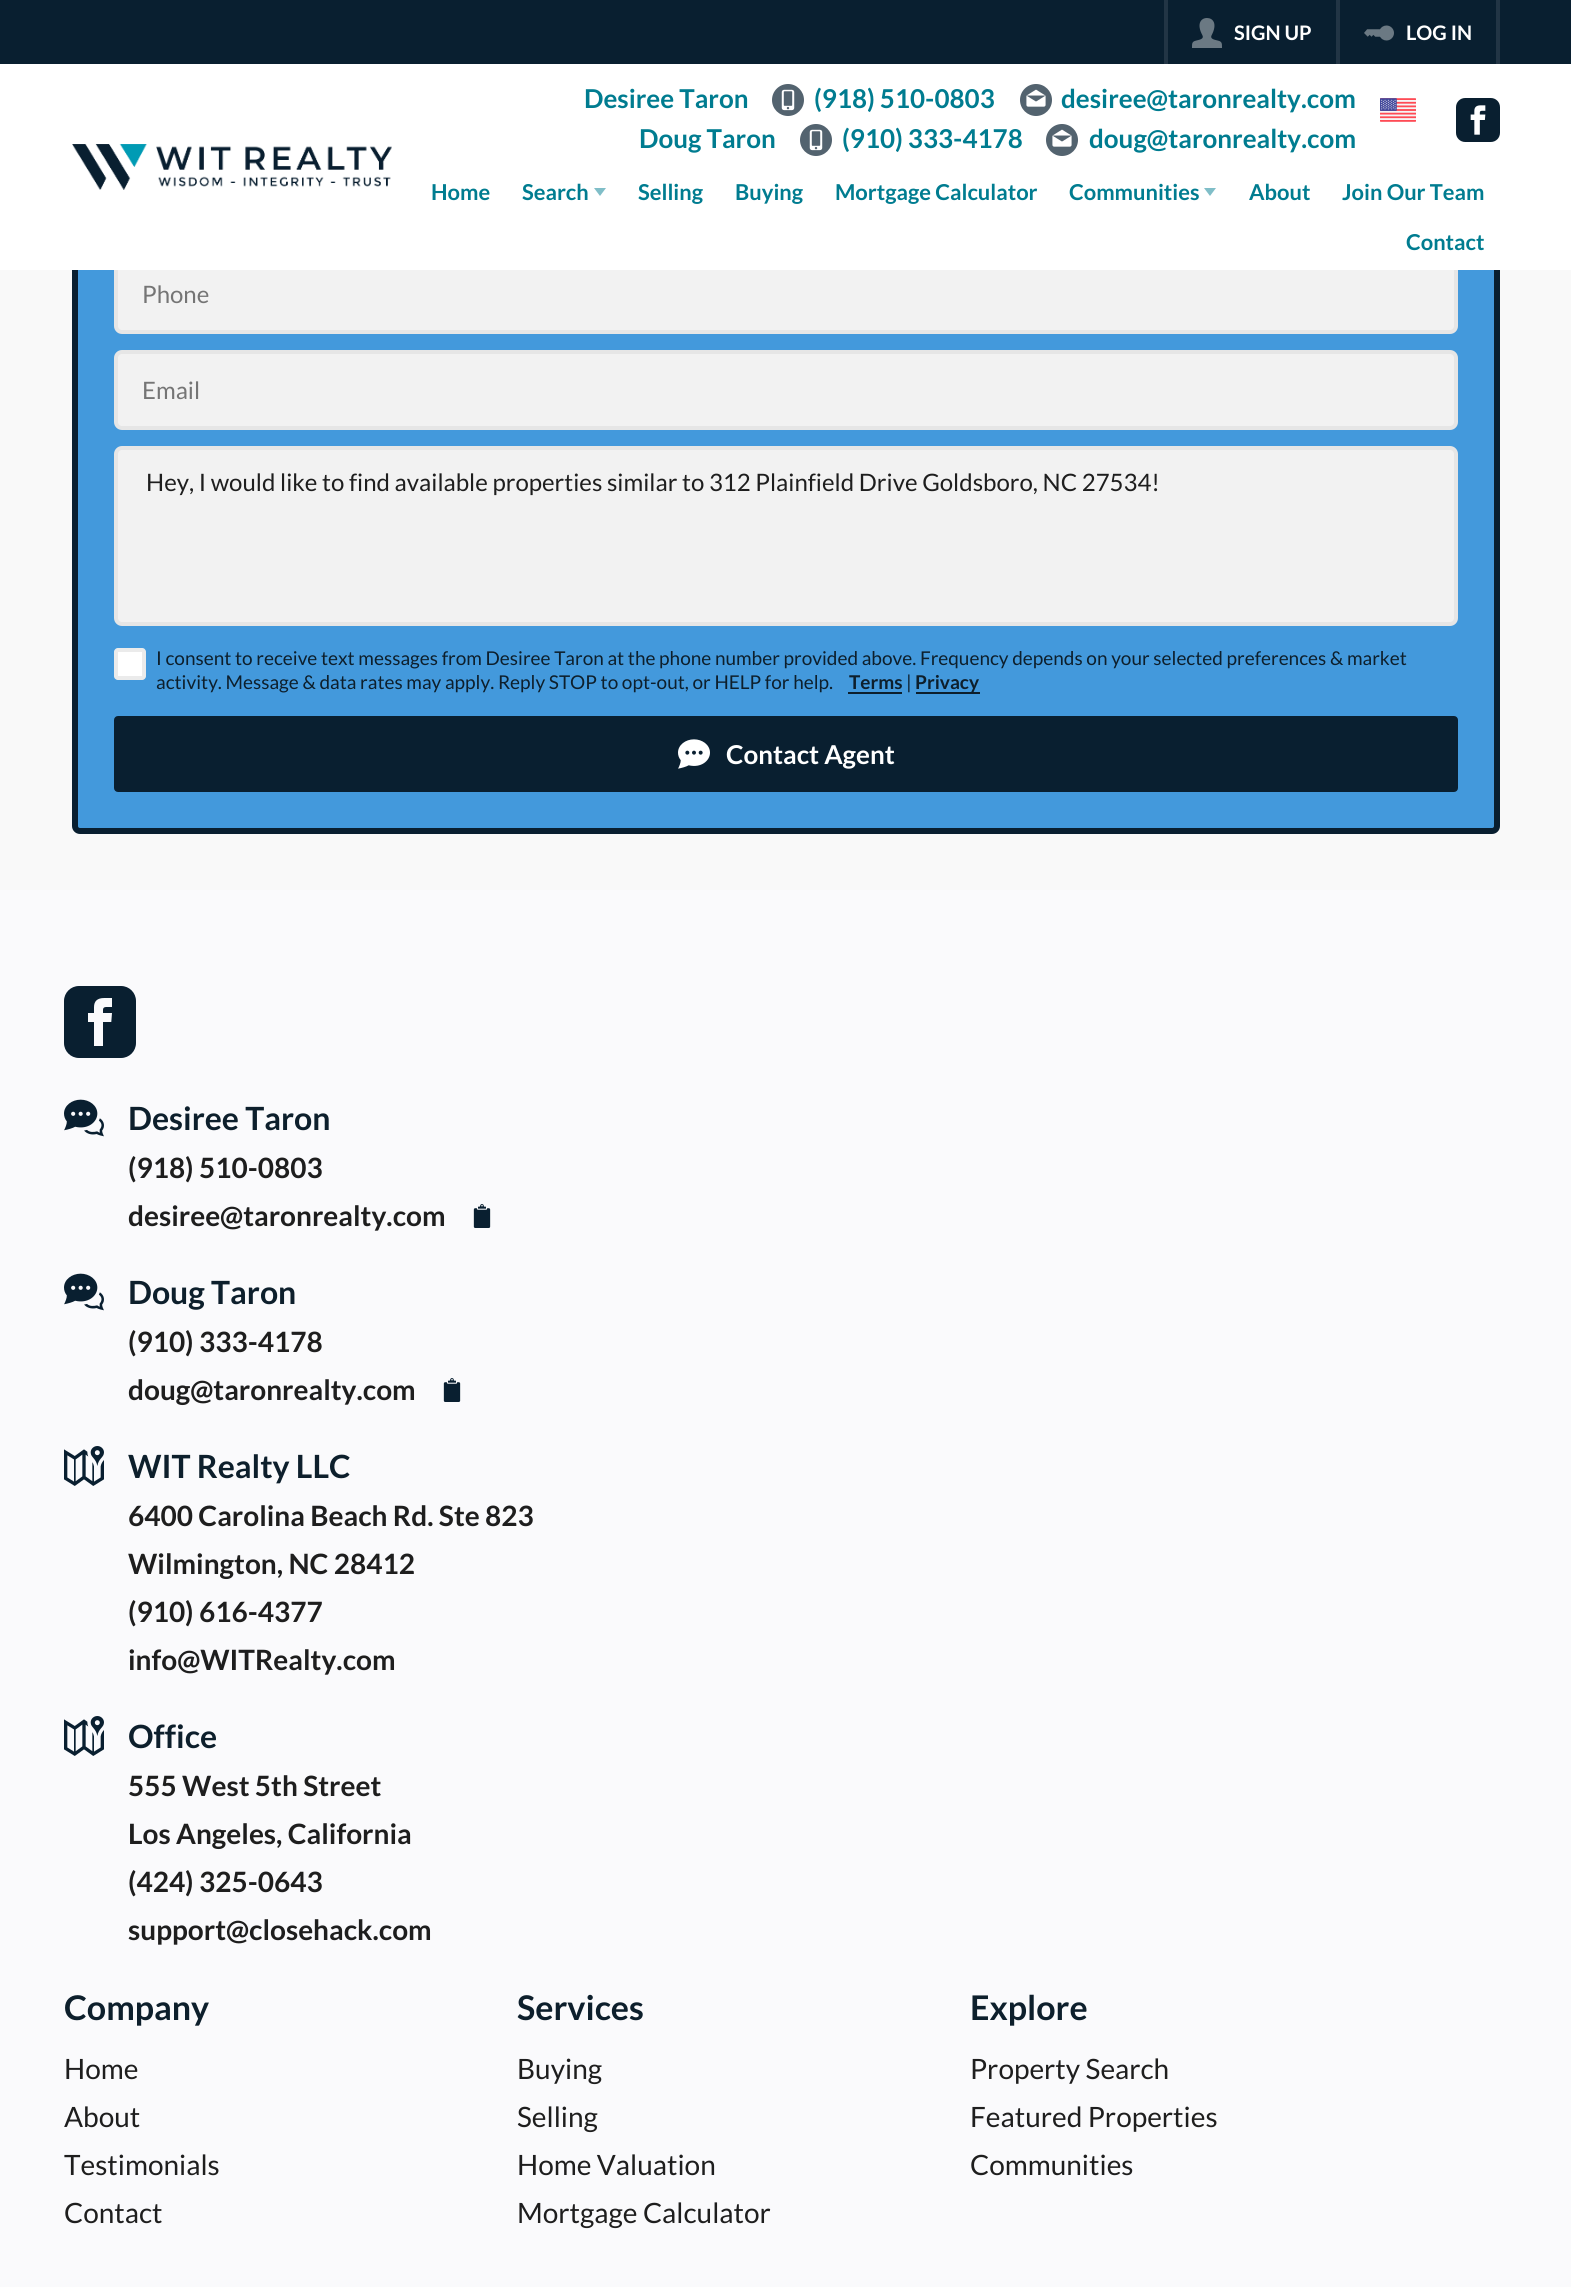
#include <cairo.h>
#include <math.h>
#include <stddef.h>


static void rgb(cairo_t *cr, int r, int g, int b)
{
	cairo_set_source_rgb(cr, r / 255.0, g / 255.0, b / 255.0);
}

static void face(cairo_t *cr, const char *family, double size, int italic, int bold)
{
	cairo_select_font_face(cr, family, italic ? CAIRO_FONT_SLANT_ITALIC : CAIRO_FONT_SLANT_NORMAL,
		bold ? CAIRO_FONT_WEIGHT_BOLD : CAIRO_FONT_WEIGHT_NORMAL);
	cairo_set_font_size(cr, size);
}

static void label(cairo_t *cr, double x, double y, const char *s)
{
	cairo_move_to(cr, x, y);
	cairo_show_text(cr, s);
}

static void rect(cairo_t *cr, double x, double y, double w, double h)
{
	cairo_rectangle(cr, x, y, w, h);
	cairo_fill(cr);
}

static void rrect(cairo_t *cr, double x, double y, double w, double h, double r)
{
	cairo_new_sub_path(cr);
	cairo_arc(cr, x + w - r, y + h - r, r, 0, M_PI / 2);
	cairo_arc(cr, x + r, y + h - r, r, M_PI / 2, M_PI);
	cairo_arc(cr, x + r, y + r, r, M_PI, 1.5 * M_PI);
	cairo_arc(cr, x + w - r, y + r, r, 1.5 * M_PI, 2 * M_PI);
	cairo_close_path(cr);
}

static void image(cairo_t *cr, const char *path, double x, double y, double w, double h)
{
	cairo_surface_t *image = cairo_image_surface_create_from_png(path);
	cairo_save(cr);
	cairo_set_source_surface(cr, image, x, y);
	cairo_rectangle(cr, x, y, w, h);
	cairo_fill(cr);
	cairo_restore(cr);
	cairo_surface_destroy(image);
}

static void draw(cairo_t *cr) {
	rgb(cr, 250, 250, 252);
	cairo_paint(cr);
	rgb(cr, 249, 249, 249);
	rect(cr, 0, 270, 1571, 620);
	rgb(cr, 67, 153, 220);
	rrect(cr, 75, -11, 1422, 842, 5);
	cairo_fill_preserve(cr);
	rgb(cr, 9, 31, 48);
	cairo_set_line_width(cr, 6);
	cairo_stroke(cr);
	rect(cr, 0, 0, 1571, 64);
	rgb(cr, 34, 53, 69);
	rect(cr, 1496, 0, 4, 64);
	rect(cr, 1164, 0, 4, 64);
	image(cr, "image0.png", 1192, 18, 30, 30);
	face(cr, "Lato", 20, 0, 1);
	rgb(cr, 255, 255, 255);
	label(cr, 1234, 40, "SIGN UP");
	rgb(cr, 34, 53, 69);
	rect(cr, 1336, 0, 4, 64);
	image(cr, "image1.png", 1364, 25, 30, 16);
	rgb(cr, 255, 255, 255);
	label(cr, 1406, 40, "LOG IN");
	rgb(cr, 242, 242, 242);
	rrect(cr, 116, 256, 1340, 76, 6);
	cairo_fill_preserve(cr);
	rgb(cr, 230, 230, 230);
	cairo_set_line_width(cr, 4);
	cairo_stroke(cr);
	rgb(cr, 255, 255, 255);
	rect(cr, 0, 64, 1571, 206);
	image(cr, "image2.png", 72, 144, 320, 46);
	face(cr, "Lato", 26, 0, 1);
	rgb(cr, 0, 124, 144);
	label(cr, 584, 108, "Desiree Taron");
	image(cr, "image3.png", 772, 84, 32, 32);
	label(cr, 814, 108, "(918) 510-0803");
	image(cr, "image4.png", 1020, 84, 32, 32);
	label(cr, 1061, 108, "desiree@taronrealty.com");
	label(cr, 639, 148, "Doug Taron");
	image(cr, "image3.png", 800, 124, 32, 32);
	label(cr, 842, 148, "(910) 333-4178");
	image(cr, "image4.png", 1046, 124, 32, 32);
	label(cr, 1089, 148, "doug@taronrealty.com");
	image(cr, "image5.png", 1380, 98, 36, 24);
	image(cr, "image6.png", 1456, 98, 44, 44);
	face(cr, "Lato", 21.9, 0, 1);
	label(cr, 431, 200, "Home");
	label(cr, 522, 200, "Search");
	rgb(cr, 128, 190, 200);
	cairo_new_path(cr);
	cairo_move_to(cr, 594, 188);
	cairo_line_to(cr, 606, 188);
	cairo_line_to(cr, 600, 196);
	cairo_close_path(cr);
	cairo_fill(cr);
	rgb(cr, 0, 124, 144);
	label(cr, 638, 200, "Selling");
	label(cr, 735, 200, "Buying");
	label(cr, 835, 200, "Mortgage Calculator");
	label(cr, 1069, 200, "Communities");
	rgb(cr, 128, 190, 200);
	cairo_new_path(cr);
	cairo_move_to(cr, 1204, 188);
	cairo_line_to(cr, 1216, 188);
	cairo_line_to(cr, 1210, 196);
	cairo_close_path(cr);
	cairo_fill(cr);
	rgb(cr, 0, 124, 144);
	label(cr, 1249, 200, "About");
	label(cr, 1342, 200, "Join Our Team");
	label(cr, 1406, 250, "Contact");
	face(cr, "Lato", 24, 0, 0);
	rgb(cr, 117, 117, 117);
	label(cr, 142, 303, "Phone");
	rgb(cr, 242, 242, 242);
	rrect(cr, 116, 352, 1340, 76, 6);
	cairo_fill_preserve(cr);
	rgb(cr, 230, 230, 230);
	cairo_stroke(cr);
	rgb(cr, 117, 117, 117);
	label(cr, 142, 399, "Email");
	rgb(cr, 242, 242, 242);
	rrect(cr, 116, 448, 1340, 176, 6);
	cairo_fill_preserve(cr);
	rgb(cr, 230, 230, 230);
	cairo_stroke(cr);
	rgb(cr, 30, 30, 30);
	label(cr, 146, 491, "Hey, I would like to find available properties similar to 312 Plainfield Drive Goldsboro, NC 27534!");
	rgb(cr, 255, 255, 255);
	rrect(cr, 114, 648, 32, 32, 4);
	cairo_fill(cr);
	rrect(cr, 116, 650, 28, 28, 2);
	cairo_set_source_rgba(cr, 0, 0, 0, 0.08);
	cairo_stroke(cr);
	face(cr, "Lato", 19, 0, 0);
	rgb(cr, 13, 31, 44);
	label(cr, 156, 665, "I consent to receive text messages from Desiree Taron at the phone number provided above. Frequency depends on your selected preferences & market");
	label(cr, 156, 689, "activity. Message & data rates may apply. Reply STOP to opt-out, or HELP for help.");
	face(cr, "Lato", 19, 0, 1);
	label(cr, 849, 689, "Terms");
	rect(cr, 848, 692, 54, 2);
	face(cr, "Lato", 19, 0, 0);
	label(cr, 906, 689, "|");
	rect(cr, 916, 692, 64, 2);
	face(cr, "Lato", 19, 0, 1);
	label(cr, 915, 689, "Privacy");
	rgb(cr, 9, 31, 48);
	rrect(cr, 116, 718, 1340, 72, 2);
	cairo_fill_preserve(cr);
	cairo_stroke(cr);
	image(cr, "image7.png", 678, 739, 32, 30);
	face(cr, "Lato", 26, 0, 1);
	rgb(cr, 255, 255, 255);
	label(cr, 726, 764, "Contact Agent");
	image(cr, "image8.png", 64, 986, 72, 72);
	image(cr, "image9.png", 64, 1099, 40, 38);
	face(cr, "Lato", 32, 0, 1);
	rgb(cr, 13, 31, 44);
	label(cr, 128, 1130, "Desiree Taron");
	face(cr, "Lato", 28, 0, 1);
	rgb(cr, 30, 30, 30);
	label(cr, 128, 1178, "(918) 510-0803");
	label(cr, 128, 1226, "desiree@taronrealty.com");
	image(cr, "image10.png", 473, 1204, 18, 24);
	image(cr, "image9.png", 64, 1273, 40, 38);
	face(cr, "Lato", 32, 0, 1);
	rgb(cr, 13, 31, 44);
	label(cr, 128, 1304, "Doug Taron");
	face(cr, "Lato", 28, 0, 1);
	rgb(cr, 30, 30, 30);
	label(cr, 128, 1352, "(910) 333-4178");
	label(cr, 128, 1400, "doug@taronrealty.com");
	image(cr, "image10.png", 443, 1378, 18, 24);
	image(cr, "image11.png", 64, 1446, 40, 40);
	face(cr, "Lato", 32, 0, 1);
	rgb(cr, 13, 31, 44);
	label(cr, 128, 1478, "WIT Realty LLC");
	face(cr, "Lato", 28, 0, 1);
	rgb(cr, 30, 30, 30);
	label(cr, 128, 1526, "6400 Carolina Beach Rd. Ste 823");
	label(cr, 128, 1574, "Wilmington, NC 28412");
	label(cr, 128, 1622, "(910) 616-4377");
	label(cr, 128, 1670, "info@WITRealty.com");
	image(cr, "image11.png", 64, 1716, 40, 40);
	face(cr, "Lato", 32, 0, 1);
	rgb(cr, 13, 31, 44);
	label(cr, 128, 1748, "Office");
	face(cr, "Lato", 28, 0, 1);
	rgb(cr, 30, 30, 30);
	label(cr, 128, 1796, "555 West 5th Street");
	label(cr, 128, 1844, "Los Angeles, California");
	label(cr, 128, 1892, "(424) 325-0643");
	label(cr, 128, 1940, "support@closehack.com");
	face(cr, "Lato", 34, 0, 1);
	rgb(cr, 13, 31, 44);
	label(cr, 64, 2020, "Company");
	face(cr, "Lato", 28, 0, 0);
	rgb(cr, 30, 30, 30);
	label(cr, 64, 2079, "Home");
	label(cr, 64, 2127, "About");
	label(cr, 64, 2175, "Testimonials");
	label(cr, 64, 2223, "Contact");
	face(cr, "Lato", 34, 0, 1);
	rgb(cr, 13, 31, 44);
	label(cr, 517, 2020, "Services");
	face(cr, "Lato", 28, 0, 0);
	rgb(cr, 30, 30, 30);
	label(cr, 517, 2079, "Buying");
	label(cr, 517, 2127, "Selling");
	label(cr, 517, 2175, "Home Valuation");
	label(cr, 517, 2223, "Mortgage Calculator");
	face(cr, "Lato", 34, 0, 1);
	rgb(cr, 13, 31, 44);
	label(cr, 970, 2020, "Explore");
	face(cr, "Lato", 28, 0, 0);
	rgb(cr, 30, 30, 30);
	label(cr, 970, 2079, "Property Search");
	label(cr, 970, 2127, "Featured Properties");
	label(cr, 970, 2175, "Communities");
}

int main(void) {
	cairo_surface_t *surface = cairo_image_surface_create(CAIRO_FORMAT_RGB24, 1571, 2287);
	cairo_t *cr = cairo_create(surface);
	cairo_font_options_t *options = cairo_font_options_create();
	cairo_font_options_set_hint_metrics(options, CAIRO_HINT_METRICS_OFF);
	cairo_font_options_set_hint_style(options, CAIRO_HINT_STYLE_NONE);
	cairo_set_font_options(cr, options);
	cairo_set_miter_limit(cr, 4);
	draw(cr);
	cairo_surface_write_to_png(surface, "render.png");
	cairo_font_options_destroy(options);
	cairo_destroy(cr);
	cairo_surface_destroy(surface);
	return 0;
}
